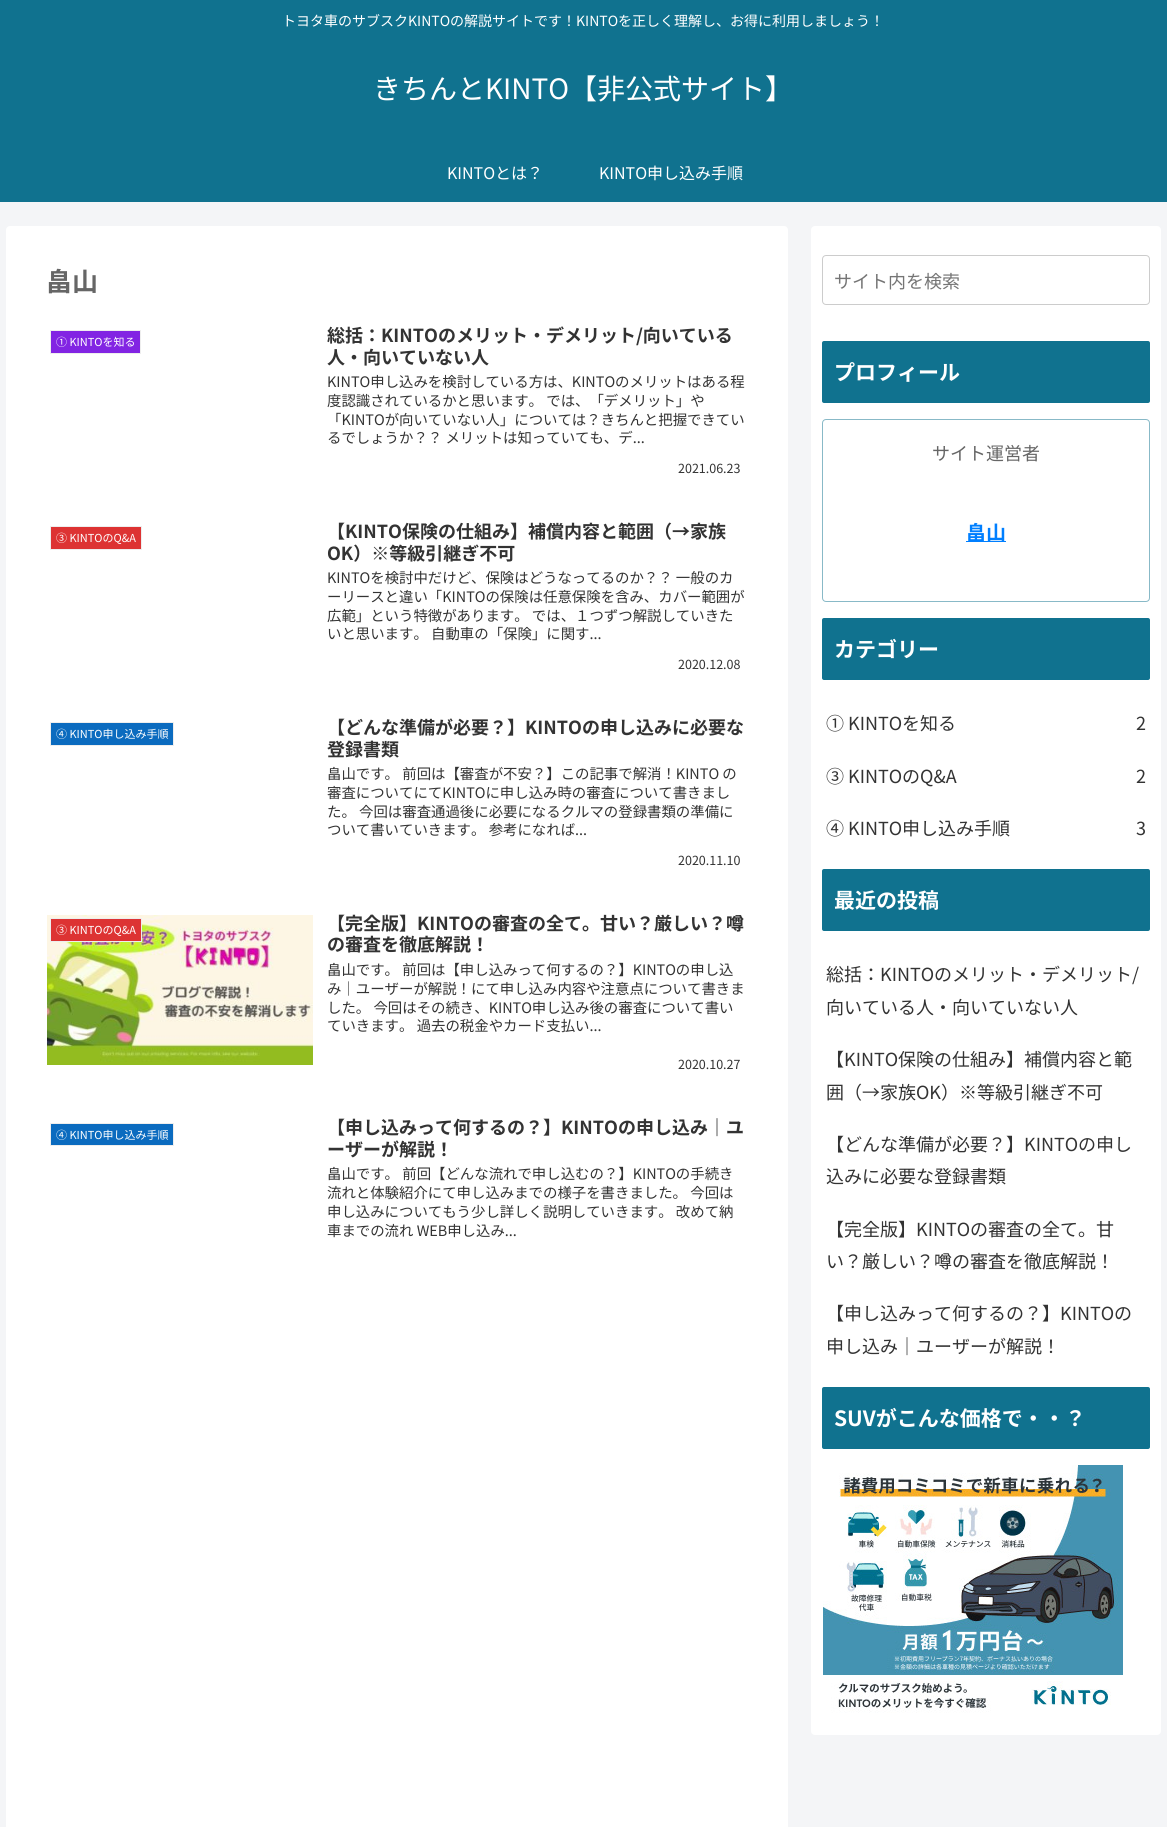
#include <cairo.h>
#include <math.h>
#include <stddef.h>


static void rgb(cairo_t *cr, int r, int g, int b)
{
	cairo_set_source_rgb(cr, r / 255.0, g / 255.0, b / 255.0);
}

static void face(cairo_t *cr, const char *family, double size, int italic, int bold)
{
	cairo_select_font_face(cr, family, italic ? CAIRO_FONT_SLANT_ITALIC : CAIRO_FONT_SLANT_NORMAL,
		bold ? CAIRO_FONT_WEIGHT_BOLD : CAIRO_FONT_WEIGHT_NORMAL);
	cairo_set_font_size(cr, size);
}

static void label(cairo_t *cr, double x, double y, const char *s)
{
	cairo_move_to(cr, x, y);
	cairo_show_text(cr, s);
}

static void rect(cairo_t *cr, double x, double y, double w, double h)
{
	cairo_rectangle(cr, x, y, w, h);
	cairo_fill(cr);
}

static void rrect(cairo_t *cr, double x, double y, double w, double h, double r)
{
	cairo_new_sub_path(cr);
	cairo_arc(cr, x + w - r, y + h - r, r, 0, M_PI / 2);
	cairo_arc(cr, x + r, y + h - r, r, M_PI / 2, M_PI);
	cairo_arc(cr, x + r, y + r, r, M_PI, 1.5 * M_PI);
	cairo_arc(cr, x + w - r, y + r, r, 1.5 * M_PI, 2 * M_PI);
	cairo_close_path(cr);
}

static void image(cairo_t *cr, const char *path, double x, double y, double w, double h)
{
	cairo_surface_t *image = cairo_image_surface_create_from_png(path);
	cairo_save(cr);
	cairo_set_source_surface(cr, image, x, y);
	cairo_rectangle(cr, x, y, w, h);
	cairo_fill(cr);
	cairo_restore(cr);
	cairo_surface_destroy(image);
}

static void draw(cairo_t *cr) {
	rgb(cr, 244, 245, 247);
	cairo_paint(cr);
	rgb(cr, 16, 114, 143);
	rect(cr, 0, 0, 1167, 202);
	face(cr, "Noto Sans JP", 14, 0, 0);
	rgb(cr, 255, 255, 255);
	label(cr, 282, 26, "トヨタ車のサブスクKINTOの解説サイトです！KINTOを正しく理解し、お得に利用しましょう！");
	face(cr, "Noto Sans JP", 28, 0, 0);
	label(cr, 373, 99, "きちんとKINTO【非公式サイト】");
	face(cr, "Noto Sans JP", 16, 0, 0);
	label(cr, 447, 179, "KINTOとは？");
	label(cr, 599, 179, "KINTO申し込み手順");
	rrect(cr, 6, 226, 782, 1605, 4);
	cairo_fill(cr);
	face(cr, "Noto Sans JP", 26, 0, 1);
	rgb(cr, 102, 102, 102);
	label(cr, 46, 291, "畠山");
	rgb(cr, 130, 36, 227);
	cairo_rectangle(cr, 50.5, 330.5, 90, 23);
	cairo_fill_preserve(cr);
	rgb(cr, 238, 238, 238);
	cairo_set_line_width(cr, 1);
	cairo_stroke(cr);
	face(cr, "Noto Sans JP", 11, 0, 0);
	rgb(cr, 255, 255, 255);
	label(cr, 56, 346, "① KINTOを知る");
	face(cr, "Noto Sans JP", 18, 0, 1);
	rgb(cr, 51, 51, 51);
	label(cr, 327, 342, "総括：KINTOのメリット・デメリット/向いている");
	label(cr, 327, 364, "人・向いていない人");
	face(cr, "Noto Sans JP", 14.4, 0, 0);
	label(cr, 327, 387, "KINTO申し込みを検討している方は、KINTOのメリットはある程");
	label(cr, 327, 406, "度認識されているかと思います。 では、「デメリット」や");
	label(cr, 327, 425, "「KINTOが向いていない人」については？きちんと把握できてい");
	label(cr, 327, 443, "るでしょうか？？ メリットは知っていても、デ...");
	face(cr, "Noto Sans JP", 12.5, 0, 0);
	label(cr, 678, 473, "2021.06.23");
	rgb(cr, 221, 51, 51);
	cairo_rectangle(cr, 50.5, 526.5, 91, 23);
	cairo_fill_preserve(cr);
	rgb(cr, 238, 238, 238);
	cairo_stroke(cr);
	face(cr, "Noto Sans JP", 11, 0, 0);
	rgb(cr, 255, 255, 255);
	label(cr, 56, 542, "③ KINTOのQ&A");
	face(cr, "Noto Sans JP", 18, 0, 1);
	rgb(cr, 51, 51, 51);
	label(cr, 327, 538, "【KINTO保険の仕組み】補償内容と範囲（→家族");
	label(cr, 327, 560, "OK）※等級引継ぎ不可");
	face(cr, "Noto Sans JP", 14.4, 0, 0);
	label(cr, 327, 583, "KINTOを検討中だけど、保険はどうなってるのか？？ 一般のカ");
	label(cr, 327, 602, "ーリースと違い「KINTOの保険は任意保険を含み、カバー範囲が");
	label(cr, 327, 621, "広範」という特徴があります。 では、１つずつ解説していきた");
	label(cr, 327, 639, "いと思います。 自動車の「保険」に関す...");
	face(cr, "Noto Sans JP", 12.5, 0, 0);
	label(cr, 678, 669, "2020.12.08");
	rgb(cr, 11, 107, 191);
	cairo_rectangle(cr, 50.5, 722.5, 123, 23);
	cairo_fill_preserve(cr);
	rgb(cr, 238, 238, 238);
	cairo_stroke(cr);
	face(cr, "Noto Sans JP", 11, 0, 0);
	rgb(cr, 255, 255, 255);
	label(cr, 56, 738, "④ KINTO申し込み手順");
	face(cr, "Noto Sans JP", 18, 0, 1);
	rgb(cr, 51, 51, 51);
	label(cr, 327, 734, "【どんな準備が必要？】KINTOの申し込みに必要な");
	label(cr, 327, 756, "登録書類");
	face(cr, "Noto Sans JP", 14.4, 0, 0);
	label(cr, 327, 779, "畠山です。 前回は【審査が不安？】この記事で解消！KINTO の");
	label(cr, 327, 798, "審査についてにてKINTOに申し込み時の審査について書きまし");
	label(cr, 327, 817, "た。 今回は審査通過後に必要になるクルマの登録書類の準備に");
	label(cr, 327, 835, "ついて書いていきます。 参考になれば...");
	face(cr, "Noto Sans JP", 12.5, 0, 0);
	label(cr, 678, 865, "2020.11.10");
	image(cr, "image0.png", 47, 915, 266, 150);
	rgb(cr, 221, 51, 51);
	cairo_rectangle(cr, 50.5, 918.5, 91, 23);
	cairo_fill_preserve(cr);
	rgb(cr, 238, 238, 238);
	cairo_stroke(cr);
	face(cr, "Noto Sans JP", 11, 0, 0);
	rgb(cr, 255, 255, 255);
	label(cr, 56, 934, "③ KINTOのQ&A");
	face(cr, "Noto Sans JP", 18, 0, 1);
	rgb(cr, 51, 51, 51);
	label(cr, 327, 930, "【完全版】KINTOの審査の全て。甘い？厳しい？噂");
	label(cr, 327, 951, "の審査を徹底解説！");
	face(cr, "Noto Sans JP", 14.4, 0, 0);
	label(cr, 327, 975, "畠山です。 前回は【申し込みって何するの？】KINTOの申し込");
	label(cr, 327, 994, "み｜ユーザーが解説！にて申し込み内容や注意点について書きま");
	label(cr, 327, 1013, "した。 今回はその続き、KINTO申し込み後の審査について書い");
	label(cr, 327, 1031, "ていきます。 過去の税金やカード支払い...");
	face(cr, "Noto Sans JP", 12.5, 0, 0);
	label(cr, 678, 1069, "2020.10.27");
	rgb(cr, 11, 107, 191);
	cairo_rectangle(cr, 50.5, 1123.5, 123, 22);
	cairo_fill_preserve(cr);
	rgb(cr, 238, 238, 238);
	cairo_stroke(cr);
	face(cr, "Noto Sans JP", 11, 0, 0);
	rgb(cr, 255, 255, 255);
	label(cr, 56, 1139, "④ KINTO申し込み手順");
	face(cr, "Noto Sans JP", 18, 0, 1);
	rgb(cr, 51, 51, 51);
	label(cr, 327, 1134, "【申し込みって何するの？】KINTOの申し込み｜ユ");
	label(cr, 327, 1156, "ーザーが解説！");
	face(cr, "Noto Sans JP", 14.4, 0, 0);
	label(cr, 327, 1179, "畠山です。 前回【どんな流れで申し込むの？】KINTOの手続き");
	label(cr, 327, 1198, "流れと体験紹介にて申し込みまでの様子を書きました。 今回は");
	label(cr, 327, 1217, "申し込みについてもう少し詳しく説明していきます。 改めて納");
	label(cr, 327, 1236, "車までの流れ WEB申し込み...");
	rgb(cr, 255, 255, 255);
	rrect(cr, 811, 226, 350, 1509, 4);
	cairo_fill(cr);
	rrect(cr, 822.5, 255.5, 327, 49, 3.5);
	rgb(cr, 204, 204, 204);
	cairo_stroke(cr);
	face(cr, "Noto Sans JP", 18, 0, 0);
	rgb(cr, 117, 117, 117);
	label(cr, 834, 288, "サイト内を検索");
	rgb(cr, 16, 114, 143);
	rrect(cr, 822, 341, 328, 62, 2);
	cairo_fill(cr);
	face(cr, "Noto Sans JP", 21, 0, 1);
	rgb(cr, 255, 255, 255);
	label(cr, 834, 380, "プロフィール");
	rrect(cr, 822.5, 419.5, 327, 182, 3.5);
	rgb(cr, 136, 185, 199);
	cairo_stroke(cr);
	face(cr, "Noto Sans JP", 18, 0, 0);
	rgb(cr, 102, 102, 102);
	label(cr, 932, 460, "サイト運営者");
	rgb(cr, 0, 127, 255);
	rect(cr, 966, 541, 40, 1);
	face(cr, "Noto Sans JP", 20, 0, 1);
	label(cr, 966, 540, "畠山");
	rgb(cr, 16, 114, 143);
	rrect(cr, 822, 618, 328, 62, 2);
	cairo_fill(cr);
	face(cr, "Noto Sans JP", 21, 0, 1);
	rgb(cr, 255, 255, 255);
	label(cr, 834, 657, "カテゴリー");
	face(cr, "Noto Sans JP", 18, 0, 0);
	rgb(cr, 51, 51, 51);
	label(cr, 826, 730, "① KINTOを知る");
	label(cr, 1136, 730, "2");
	label(cr, 826, 783, "③ KINTOのQ&A");
	label(cr, 1136, 783, "2");
	label(cr, 826, 835, "④ KINTO申し込み手順");
	label(cr, 1136, 835, "3");
	rgb(cr, 16, 114, 143);
	rrect(cr, 822, 869, 328, 62, 2);
	cairo_fill(cr);
	face(cr, "Noto Sans JP", 21, 0, 1);
	rgb(cr, 255, 255, 255);
	label(cr, 834, 908, "最近の投稿");
	face(cr, "Noto Sans JP", 18, 0, 0);
	rgb(cr, 51, 51, 51);
	label(cr, 826, 981, "総括：KINTOのメリット・デメリット/");
	label(cr, 826, 1014, "向いている人・向いていない人");
	label(cr, 826, 1066, "【KINTO保険の仕組み】補償内容と範");
	label(cr, 826, 1099, "囲（→家族OK）※等級引継ぎ不可");
	label(cr, 826, 1151, "【どんな準備が必要？】KINTOの申し");
	label(cr, 826, 1183, "込みに必要な登録書類");
	label(cr, 826, 1236, "【完全版】KINTOの審査の全て。甘");
	label(cr, 826, 1268, "い？厳しい？噂の審査を徹底解説！");
	label(cr, 826, 1320, "【申し込みって何するの？】KINTOの");
	label(cr, 826, 1353, "申し込み｜ユーザーが解説！");
	rgb(cr, 16, 114, 143);
	rrect(cr, 822, 1387, 328, 62, 2);
	cairo_fill(cr);
	face(cr, "Noto Sans JP", 21, 0, 1);
	rgb(cr, 255, 255, 255);
	label(cr, 834, 1426, "SUVがこんな価格で・・？");
	image(cr, "image1.png", 823, 1465, 300, 248);
}

int main(void) {
	cairo_surface_t *surface = cairo_image_surface_create(CAIRO_FORMAT_RGB24, 1167, 1827);
	cairo_t *cr = cairo_create(surface);
	cairo_font_options_t *options = cairo_font_options_create();
	cairo_font_options_set_hint_metrics(options, CAIRO_HINT_METRICS_OFF);
	cairo_font_options_set_hint_style(options, CAIRO_HINT_STYLE_NONE);
	cairo_set_font_options(cr, options);
	cairo_set_miter_limit(cr, 4);
	draw(cr);
	cairo_surface_write_to_png(surface, "render.png");
	cairo_font_options_destroy(options);
	cairo_destroy(cr);
	cairo_surface_destroy(surface);
	return 0;
}
